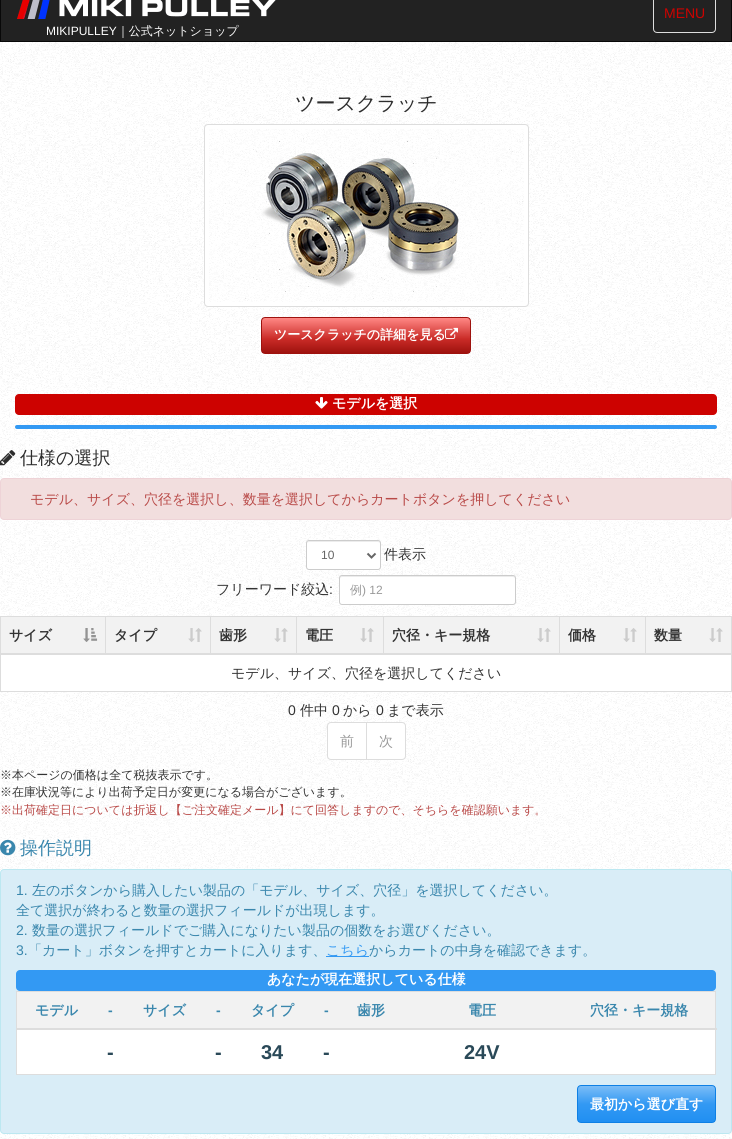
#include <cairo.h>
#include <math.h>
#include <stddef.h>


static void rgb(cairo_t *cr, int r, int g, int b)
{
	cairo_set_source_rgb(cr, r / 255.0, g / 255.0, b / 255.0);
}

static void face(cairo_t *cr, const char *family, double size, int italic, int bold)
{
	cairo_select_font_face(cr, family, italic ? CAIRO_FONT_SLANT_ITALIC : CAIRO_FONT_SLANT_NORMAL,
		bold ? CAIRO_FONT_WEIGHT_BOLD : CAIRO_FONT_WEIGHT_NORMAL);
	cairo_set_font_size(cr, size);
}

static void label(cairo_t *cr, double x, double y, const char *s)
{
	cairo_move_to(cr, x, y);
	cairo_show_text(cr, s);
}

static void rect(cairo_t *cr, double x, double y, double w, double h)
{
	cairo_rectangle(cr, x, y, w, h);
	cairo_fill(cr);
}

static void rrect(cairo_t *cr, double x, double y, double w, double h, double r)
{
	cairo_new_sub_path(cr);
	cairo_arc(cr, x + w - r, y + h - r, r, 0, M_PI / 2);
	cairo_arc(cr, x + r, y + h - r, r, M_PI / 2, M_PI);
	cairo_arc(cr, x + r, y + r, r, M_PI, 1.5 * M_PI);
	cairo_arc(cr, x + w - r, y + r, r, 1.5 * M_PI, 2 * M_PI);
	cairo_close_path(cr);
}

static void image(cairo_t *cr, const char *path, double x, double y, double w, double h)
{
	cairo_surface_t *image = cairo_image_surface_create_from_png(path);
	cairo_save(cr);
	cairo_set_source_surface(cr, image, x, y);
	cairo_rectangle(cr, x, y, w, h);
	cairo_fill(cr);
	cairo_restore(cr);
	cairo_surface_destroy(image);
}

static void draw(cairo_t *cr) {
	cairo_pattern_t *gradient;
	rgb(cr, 255, 255, 255);
	cairo_paint(cr);
	image(cr, "image0.png", 0, 42, 732, 1097);
	rgb(cr, 34, 34, 34);
	cairo_rectangle(cr, 0.5, -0.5, 731, 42);
	cairo_fill_preserve(cr);
	rgb(cr, 8, 8, 8);
	cairo_set_line_width(cr, 1);
	cairo_stroke(cr);
	rrect(cr, 653.5, -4.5, 62, 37, 3.5);
	rgb(cr, 221, 221, 221);
	cairo_stroke(cr);
	face(cr, "Liberation Sans", 14, 0, 0);
	rgb(cr, 205, 2, 0);
	label(cr, 664, 18, "MENU");
	image(cr, "image1.png", 17, 0, 259, 19);
	face(cr, "Liberation Sans", 12, 0, 0);
	rgb(cr, 255, 255, 255);
	label(cr, 46, 35, "MIKIPULLEY");
	face(cr, "WenQuanYi Zen Hei Medium", 12, 0, 0);
	label(cr, 117, 35, "｜公式ネットショップ");
	face(cr, "WenQuanYi Zen Hei Medium", 20, 0, 0);
	rgb(cr, 45, 45, 45);
	label(cr, 295, 110, "ツースクラッチ");
	rgb(cr, 255, 255, 255);
	rrect(cr, 204.5, 124.5, 324, 182, 3.5);
	cairo_fill_preserve(cr);
	rgb(cr, 221, 221, 221);
	cairo_stroke(cr);
	image(cr, "image2.png", 209, 129, 315, 173);
	cairo_save(cr);
	rrect(cr, 261, 317, 210, 37, 4);
	cairo_clip(cr);
	gradient = cairo_pattern_create_linear(366, 318, 366, 353);
	cairo_pattern_add_color_stop_rgba(gradient, 0, 1, 0.533, 0.522, 1);
	cairo_pattern_add_color_stop_rgba(gradient, 0.6, 0.792, 0.169, 0.153, 1);
	cairo_pattern_add_color_stop_rgba(gradient, 1, 0.62, 0.071, 0.055, 1);
	cairo_set_source(cr, gradient);
	cairo_pattern_destroy(gradient);
	rect(cr, 262, 318, 208, 35);
	cairo_restore(cr);
	rrect(cr, 261.5, 317.5, 209, 36, 3.5);
	rgb(cr, 158, 18, 14);
	cairo_stroke(cr);
	face(cr, "WenQuanYi Zen Hei", 13, 0, 1);
	rgb(cr, 255, 255, 255);
	label(cr, 274, 339, "ツースクラッチの詳細を見る");
	image(cr, "image3.png", 445, 327, 13, 12);
	rgb(cr, 205, 2, 0);
	rrect(cr, 15, 394, 702, 21, 4);
	cairo_fill(cr);
	image(cr, "image4.png", 315, 397, 13, 12);
	face(cr, "WenQuanYi Zen Hei", 14, 0, 1);
	rgb(cr, 255, 255, 255);
	label(cr, 332, 408, "モデルを選択");
	rgb(cr, 51, 153, 243);
	rrect(cr, 15, 425, 702, 4, 2);
	cairo_fill(cr);
	image(cr, "image5.png", 0, 450, 16, 16);
	face(cr, "WenQuanYi Zen Hei Medium", 18, 0, 0);
	rgb(cr, 45, 45, 45);
	label(cr, 20, 464, "仕様の選択");
	rgb(cr, 242, 222, 222);
	rrect(cr, 0.5, 478.5, 731, 41, 3.5);
	cairo_fill_preserve(cr);
	rgb(cr, 238, 211, 215);
	cairo_stroke(cr);
	face(cr, "WenQuanYi Zen Hei Medium", 14, 0, 0);
	rgb(cr, 185, 74, 72);
	label(cr, 30, 504, "モデル、サイズ、穴径を選択し、数量を選択してからカートボタンを押してください");
	rgb(cr, 255, 255, 255);
	rrect(cr, 306, 540, 75, 30, 3);
	cairo_fill(cr);
	rgb(cr, 236, 236, 236);
	cairo_new_path(cr);
	cairo_move_to(cr, 309, 542);
	cairo_line_to(cr, 378, 542);
	cairo_curve_to(cr, 379, 542, 380, 543, 380, 544);
	cairo_curve_to(cr, 380, 538, 370, 541, 366, 541);
	cairo_line_to(cr, 320, 541);
	cairo_curve_to(cr, 317, 541, 307, 538, 307, 544);
	cairo_curve_to(cr, 307, 543, 308, 542, 309, 542);
	cairo_close_path(cr);
	cairo_fill(cr);
	rrect(cr, 306.5, 540.5, 74, 29, 2.5);
	rgb(cr, 204, 204, 204);
	cairo_stroke(cr);
	cairo_new_path(cr);
	cairo_move_to(cr, 367.5, 553.5);
	cairo_line_to(cr, 371.5, 557.5);
	cairo_line_to(cr, 375.5, 553.5);
	rgb(cr, 102, 102, 102);
	cairo_set_line_width(cr, 2);
	cairo_stroke(cr);
	face(cr, "Liberation Sans", 12, 0, 0);
	label(cr, 321, 559, "10");
	face(cr, "WenQuanYi Zen Hei Medium", 14, 0, 0);
	rgb(cr, 51, 51, 51);
	label(cr, 384, 559, "件表示");
	label(cr, 216, 594, "フリーワード絞込");
	face(cr, "Liberation Sans", 14, 0, 0);
	label(cr, 329, 594, ":");
	rgb(cr, 255, 255, 255);
	rrect(cr, 339, 575, 177, 30, 3);
	cairo_fill(cr);
	rgb(cr, 236, 236, 236);
	cairo_new_path(cr);
	cairo_move_to(cr, 342, 577);
	cairo_line_to(cr, 513, 577);
	cairo_curve_to(cr, 514, 577, 515, 578, 515, 579);
	cairo_curve_to(cr, 515, 578, 515, 576, 513, 576);
	cairo_line_to(cr, 342, 576);
	cairo_curve_to(cr, 340, 576, 340, 578, 340, 579);
	cairo_curve_to(cr, 340, 578, 341, 577, 342, 577);
	cairo_close_path(cr);
	cairo_fill(cr);
	rrect(cr, 339.5, 575.5, 176, 29, 2.5);
	rgb(cr, 204, 204, 204);
	cairo_set_line_width(cr, 1);
	cairo_stroke(cr);
	face(cr, "WenQuanYi Zen Hei Medium", 12, 0, 0);
	rgb(cr, 153, 153, 153);
	label(cr, 350, 594, "例");
	face(cr, "Liberation Sans", 12, 0, 0);
	label(cr, 362, 594, ") 12");
	rgb(cr, 221, 221, 221);
	rect(cr, 0, 616, 732, 1);
	rect(cr, 731, 616, 1, 76);
	rect(cr, 0, 616, 1, 39);
	rgb(cr, 242, 242, 242);
	rect(cr, 1, 617, 730, 36);
	rgb(cr, 221, 221, 221);
	rect(cr, 105, 617, 1, 38);
	rect(cr, 1, 653, 105, 2);
	face(cr, "WenQuanYi Zen Hei", 14, 0, 1);
	rgb(cr, 51, 51, 51);
	label(cr, 9, 640, "サイズ");
	image(cr, "image6.png", 83, 628, 15, 14);
	rgb(cr, 221, 221, 221);
	rect(cr, 210, 617, 1, 38);
	rect(cr, 106, 653, 105, 2);
	rgb(cr, 51, 51, 51);
	label(cr, 114, 640, "タイプ");
	image(cr, "image7.png", 188, 628, 14, 14);
	rgb(cr, 221, 221, 221);
	rect(cr, 296, 617, 1, 38);
	rect(cr, 211, 653, 86, 2);
	rgb(cr, 51, 51, 51);
	label(cr, 219, 640, "歯形");
	image(cr, "image7.png", 274, 628, 14, 14);
	rgb(cr, 221, 221, 221);
	rect(cr, 383, 617, 1, 38);
	rect(cr, 297, 653, 87, 2);
	rgb(cr, 51, 51, 51);
	label(cr, 305, 640, "電圧");
	image(cr, "image7.png", 360, 628, 14, 14);
	rgb(cr, 221, 221, 221);
	rect(cr, 559, 617, 1, 38);
	rect(cr, 384, 653, 176, 2);
	rgb(cr, 51, 51, 51);
	label(cr, 392, 640, "穴径・キー規格");
	image(cr, "image7.png", 537, 628, 14, 14);
	rgb(cr, 221, 221, 221);
	rect(cr, 645, 617, 1, 38);
	rect(cr, 560, 653, 171, 2);
	rgb(cr, 51, 51, 51);
	label(cr, 568, 640, "価格");
	image(cr, "image7.png", 623, 628, 14, 14);
	label(cr, 654, 640, "数量");
	image(cr, "image7.png", 709, 628, 14, 14);
	rgb(cr, 255, 255, 255);
	rect(cr, 1, 655, 730, 36);
	rgb(cr, 221, 221, 221);
	rect(cr, 0, 691, 732, 1);
	rect(cr, 0, 655, 1, 37);
	face(cr, "WenQuanYi Zen Hei Medium", 14, 0, 0);
	rgb(cr, 51, 51, 51);
	label(cr, 231, 678, "モデル、サイズ、穴径を選択してください");
	face(cr, "Liberation Sans", 14, 0, 0);
	label(cr, 288, 715, "0");
	face(cr, "WenQuanYi Zen Hei Medium", 14, 0, 0);
	label(cr, 300, 715, "件中");
	face(cr, "Liberation Sans", 14, 0, 0);
	label(cr, 332, 715, "0");
	face(cr, "WenQuanYi Zen Hei Medium", 14, 0, 0);
	label(cr, 343, 715, "から");
	face(cr, "Liberation Sans", 14, 0, 0);
	label(cr, 376, 715, "0");
	face(cr, "WenQuanYi Zen Hei Medium", 14, 0, 0);
	label(cr, 387, 715, "まで表示");
	rgb(cr, 255, 255, 255);
	cairo_new_path(cr);
	cairo_move_to(cr, 331, 722.5);
	cairo_line_to(cr, 366.5, 722.5);
	cairo_line_to(cr, 366.5, 759.5);
	cairo_line_to(cr, 331, 759.5);
	cairo_curve_to(cr, 329, 759.5, 327.5, 758, 327.5, 756);
	cairo_line_to(cr, 327.5, 726);
	cairo_curve_to(cr, 327.5, 724, 329, 722.5, 331, 722.5);
	cairo_close_path(cr);
	cairo_fill_preserve(cr);
	rgb(cr, 221, 221, 221);
	cairo_stroke(cr);
	rgb(cr, 153, 153, 153);
	label(cr, 340, 746, "前");
	rgb(cr, 255, 255, 255);
	cairo_new_path(cr);
	cairo_move_to(cr, 366.5, 722.5);
	cairo_line_to(cr, 402, 722.5);
	cairo_curve_to(cr, 404, 722.5, 405.5, 724, 405.5, 726);
	cairo_line_to(cr, 405.5, 756);
	cairo_curve_to(cr, 405.5, 758, 404, 759.5, 402, 759.5);
	cairo_line_to(cr, 366.5, 759.5);
	cairo_close_path(cr);
	cairo_fill_preserve(cr);
	rgb(cr, 221, 221, 221);
	cairo_stroke(cr);
	rgb(cr, 153, 153, 153);
	label(cr, 379, 746, "次");
	face(cr, "WenQuanYi Zen Hei Medium", 12, 0, 0);
	rgb(cr, 51, 51, 51);
	label(cr, 0, 779, "※本ページの価格は全て税抜表示です。");
	label(cr, 0, 796, "※在庫状況等により出荷予定日が変更になる場合がございます。");
	rgb(cr, 185, 74, 72);
	label(cr, 0, 814, "※出荷確定日については折返し【ご注文確定メール】にて回答しますので、そちらを確認願います。");
	image(cr, "image8.png", 0, 839, 16, 17);
	face(cr, "WenQuanYi Zen Hei Medium", 18, 0, 0);
	rgb(cr, 58, 135, 173);
	label(cr, 20, 854, "操作説明");
	rgb(cr, 217, 237, 247);
	rrect(cr, 0.5, 869.5, 731, 264, 3.5);
	cairo_fill_preserve(cr);
	rgb(cr, 188, 232, 241);
	cairo_stroke(cr);
	face(cr, "Liberation Sans", 14, 0, 0);
	rgb(cr, 58, 135, 173);
	label(cr, 16, 895, "1.");
	face(cr, "WenQuanYi Zen Hei Medium", 14, 0, 0);
	label(cr, 32, 895, "左のボタンから購入したい製品の「モデル、サイズ、穴径」を選択してください。");
	label(cr, 16, 915, "全て選択が終わると数量の選択フィールドが出現します。");
	face(cr, "Liberation Sans", 14, 0, 0);
	label(cr, 16, 935, "2.");
	face(cr, "WenQuanYi Zen Hei Medium", 14, 0, 0);
	label(cr, 32, 935, "数量の選択フィールドでご購入になりたい製品の個数をお選びください。");
	face(cr, "Liberation Sans", 14, 0, 0);
	label(cr, 16, 955, "3.");
	face(cr, "WenQuanYi Zen Hei Medium", 14, 0, 0);
	label(cr, 28, 955, "「カート」ボタンを押すとカートに入ります、");
	rgb(cr, 51, 153, 243);
	rect(cr, 326, 956, 43, 1);
	label(cr, 326, 955, "こちら");
	rgb(cr, 58, 135, 173);
	label(cr, 369, 955, "からカートの中身を確認できます。");
	rgb(cr, 51, 153, 243);
	rrect(cr, 16, 970, 700, 21, 4);
	cairo_fill(cr);
	face(cr, "WenQuanYi Zen Hei", 14, 0, 1);
	rgb(cr, 255, 255, 255);
	label(cr, 267, 984, "あなたが現在選択している仕様");
	rect(cr, 17, 1030, 698, 44);
	rgb(cr, 221, 221, 221);
	rect(cr, 16, 991, 700, 1);
	rect(cr, 715, 991, 1, 84);
	rect(cr, 16, 1074, 700, 1);
	rect(cr, 16, 991, 1, 84);
	rgb(cr, 242, 242, 242);
	rect(cr, 17, 992, 698, 36);
	rgb(cr, 58, 135, 173);
	label(cr, 35, 1015, "モデル");
	face(cr, "Liberation Sans", 14, 0, 1);
	label(cr, 108, 1015, "-");
	face(cr, "WenQuanYi Zen Hei", 14, 0, 1);
	label(cr, 143, 1015, "サイズ");
	face(cr, "Liberation Sans", 14, 0, 1);
	label(cr, 216, 1015, "-");
	face(cr, "WenQuanYi Zen Hei", 14, 0, 1);
	label(cr, 251, 1015, "タイプ");
	face(cr, "Liberation Sans", 14, 0, 1);
	label(cr, 324, 1015, "-");
	face(cr, "WenQuanYi Zen Hei", 14, 0, 1);
	label(cr, 357, 1015, "歯形");
	label(cr, 468, 1015, "電圧");
	rgb(cr, 221, 221, 221);
	rect(cr, 16, 1028, 701, 2);
	rgb(cr, 58, 135, 173);
	label(cr, 590, 1015, "穴径・キー規格");
	face(cr, "Liberation Sans", 20, 0, 1);
	rgb(cr, 42, 73, 88);
	label(cr, 107, 1059, "-");
	label(cr, 215, 1059, "-");
	label(cr, 261, 1059, "34");
	label(cr, 323, 1059, "-");
	label(cr, 464, 1059, "24V");
	cairo_save(cr);
	rrect(cr, 577, 1085, 139, 38, 4);
	cairo_clip(cr);
	gradient = cairo_pattern_create_linear(647, 1086, 647, 1122);
	cairo_pattern_add_color_stop_rgba(gradient, 0, 0.482, 0.741, 0.969, 1);
	cairo_pattern_add_color_stop_rgba(gradient, 0.5, 0.2, 0.6, 0.953, 1);
	cairo_pattern_add_color_stop_rgba(gradient, 1, 0.125, 0.561, 0.949, 1);
	cairo_set_source(cr, gradient);
	cairo_pattern_destroy(gradient);
	rect(cr, 578, 1086, 137, 36);
	cairo_restore(cr);
	rrect(cr, 577.5, 1085.5, 138, 37, 3.5);
	rgb(cr, 14, 128, 229);
	cairo_stroke(cr);
	face(cr, "WenQuanYi Zen Hei", 14, 0, 1);
	rgb(cr, 255, 255, 255);
	label(cr, 590, 1109, "最初から選び直す");
}

int main(void) {
	cairo_surface_t *surface = cairo_image_surface_create(CAIRO_FORMAT_RGB24, 732, 1139);
	cairo_t *cr = cairo_create(surface);
	cairo_font_options_t *options = cairo_font_options_create();
	cairo_font_options_set_hint_metrics(options, CAIRO_HINT_METRICS_OFF);
	cairo_font_options_set_hint_style(options, CAIRO_HINT_STYLE_NONE);
	cairo_set_font_options(cr, options);
	cairo_set_miter_limit(cr, 4);
	draw(cr);
	cairo_surface_write_to_png(surface, "render.png");
	cairo_font_options_destroy(options);
	cairo_destroy(cr);
	cairo_surface_destroy(surface);
	return 0;
}
